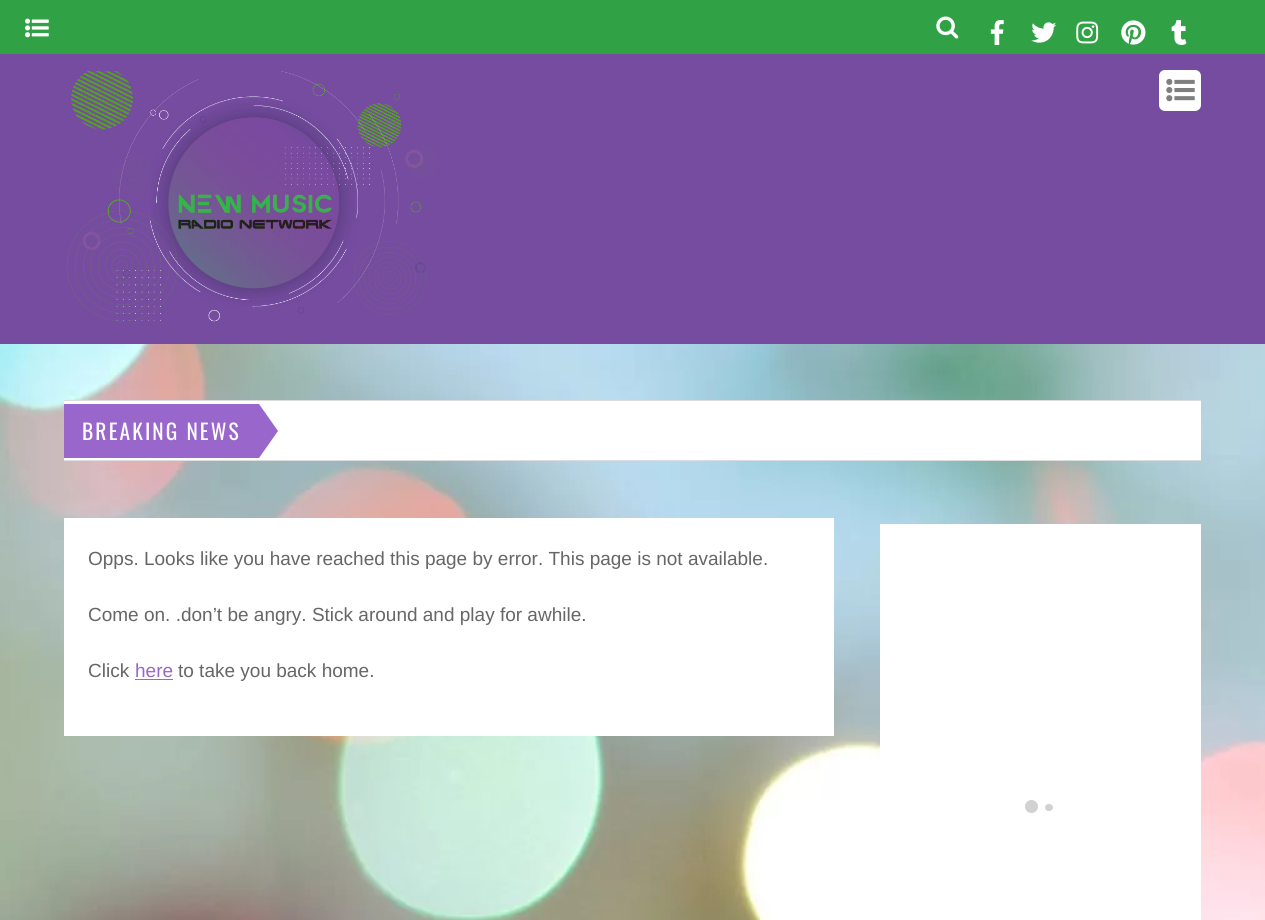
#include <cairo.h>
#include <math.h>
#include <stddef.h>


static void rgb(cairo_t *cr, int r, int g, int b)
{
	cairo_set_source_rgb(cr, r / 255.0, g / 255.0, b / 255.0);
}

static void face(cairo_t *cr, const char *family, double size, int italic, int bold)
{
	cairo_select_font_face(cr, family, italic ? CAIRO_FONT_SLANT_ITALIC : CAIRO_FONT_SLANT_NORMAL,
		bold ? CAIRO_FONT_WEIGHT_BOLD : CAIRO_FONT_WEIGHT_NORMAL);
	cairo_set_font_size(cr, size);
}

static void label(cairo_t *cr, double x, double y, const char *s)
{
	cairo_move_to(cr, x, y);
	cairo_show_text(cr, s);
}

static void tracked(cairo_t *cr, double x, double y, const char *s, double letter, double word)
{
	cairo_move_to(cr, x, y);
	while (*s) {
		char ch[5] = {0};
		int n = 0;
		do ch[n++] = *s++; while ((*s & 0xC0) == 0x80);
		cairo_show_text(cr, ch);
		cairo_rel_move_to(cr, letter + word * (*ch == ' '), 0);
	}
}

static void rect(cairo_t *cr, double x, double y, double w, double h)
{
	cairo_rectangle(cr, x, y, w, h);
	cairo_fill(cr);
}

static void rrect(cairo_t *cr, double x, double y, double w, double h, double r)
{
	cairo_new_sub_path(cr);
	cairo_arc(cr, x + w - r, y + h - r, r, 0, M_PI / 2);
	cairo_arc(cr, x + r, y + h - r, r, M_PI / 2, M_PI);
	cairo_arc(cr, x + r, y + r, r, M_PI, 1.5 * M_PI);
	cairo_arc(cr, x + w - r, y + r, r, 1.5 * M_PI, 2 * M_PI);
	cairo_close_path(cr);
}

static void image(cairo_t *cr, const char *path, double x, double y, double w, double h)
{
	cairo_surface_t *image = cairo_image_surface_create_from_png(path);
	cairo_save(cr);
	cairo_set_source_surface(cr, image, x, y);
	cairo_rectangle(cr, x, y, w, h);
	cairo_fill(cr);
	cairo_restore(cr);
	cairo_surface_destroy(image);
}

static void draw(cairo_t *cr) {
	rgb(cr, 255, 255, 255);
	cairo_paint(cr);
	image(cr, "image0.png", 0, 344, 1265, 576);
	rgb(cr, 118, 76, 161);
	rect(cr, 0, 54, 1265, 290);
	rgb(cr, 48, 161, 69);
	rect(cr, 0, 0, 1265, 54);
	image(cr, "image1.png", 25, 18, 24, 20);
	image(cr, "image2.png", 936, 16, 23, 23);
	image(cr, "image3.png", 990, 20, 14, 25);
	image(cr, "image4.png", 1031, 22, 25, 21);
	image(cr, "image5.png", 1076, 21, 23, 23);
	image(cr, "image6.png", 1121, 20, 25, 25);
	image(cr, "image7.png", 1171, 20, 16, 25);
	image(cr, "image8.png", 66, 71, 373, 251);
	rgb(cr, 255, 255, 255);
	rrect(cr, 1159, 70, 42, 41, 6);
	cairo_fill(cr);
	image(cr, "image9.png", 1166, 78, 29, 24);
	rect(cr, 64, 401, 1137, 59);
	rgb(cr, 221, 221, 221);
	rect(cr, 64, 400, 1137, 1);
	rect(cr, 64, 460, 1137, 1);
	rgb(cr, 153, 102, 204);
	rect(cr, 64, 404, 195, 54);
	face(cr, "Oswald", 21.5, 0, 0);
	rgb(cr, 255, 255, 255);
	tracked(cr, 82, 440, "BREAKING NEWS", 2.1, 0);
	rgb(cr, 153, 102, 204);
	cairo_new_path(cr);
	cairo_move_to(cr, 259, 458);
	cairo_line_to(cr, 259, 404);
	cairo_line_to(cr, 278, 431);
	cairo_close_path(cr);
	cairo_fill(cr);
	rgb(cr, 255, 255, 255);
	rect(cr, 64, 518, 770, 218);
	face(cr, "Liberation Sans", 19, 0, 0);
	rgb(cr, 102, 102, 102);
	label(cr, 88, 565, "Opps. Looks like you have reached this page by error. This page is not available.");
	label(cr, 88, 621, "Come on. .don’t be angry. Stick around and play for awhile.");
	label(cr, 88, 677, "Click");
	rgb(cr, 153, 102, 204);
	label(cr, 135, 677, "here");
	rect(cr, 135, 679, 38, 1);
	rgb(cr, 102, 102, 102);
	label(cr, 178, 677, "to take you back home.");
	rgb(cr, 255, 255, 255);
	rect(cr, 880, 524, 321, 396);
	rgb(cr, 209, 209, 209);
	cairo_new_path(cr);
	cairo_arc(cr, 1031.5, 806.5, 6.5, 0, 2 * M_PI);
	cairo_fill(cr);
	rrect(cr, 1045, 804, 8, 7, 3.5);
	cairo_fill(cr);
}

int main(void) {
	cairo_surface_t *surface = cairo_image_surface_create(CAIRO_FORMAT_RGB24, 1265, 920);
	cairo_t *cr = cairo_create(surface);
	cairo_font_options_t *options = cairo_font_options_create();
	cairo_font_options_set_hint_metrics(options, CAIRO_HINT_METRICS_OFF);
	cairo_font_options_set_hint_style(options, CAIRO_HINT_STYLE_NONE);
	cairo_set_font_options(cr, options);
	cairo_set_miter_limit(cr, 4);
	draw(cr);
	cairo_surface_write_to_png(surface, "render.png");
	cairo_font_options_destroy(options);
	cairo_destroy(cr);
	cairo_surface_destroy(surface);
	return 0;
}
